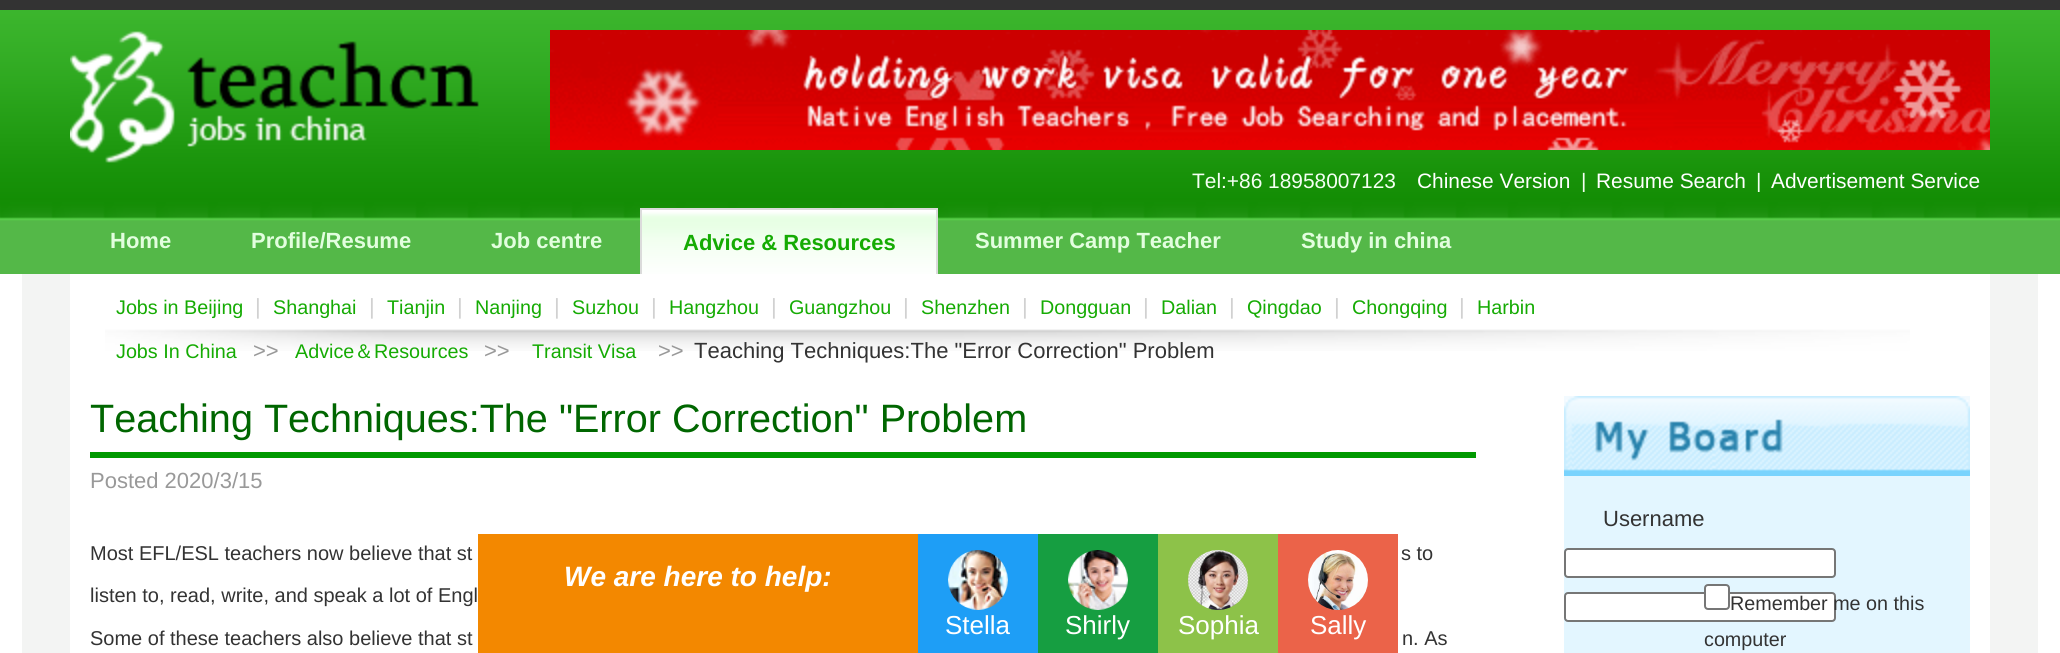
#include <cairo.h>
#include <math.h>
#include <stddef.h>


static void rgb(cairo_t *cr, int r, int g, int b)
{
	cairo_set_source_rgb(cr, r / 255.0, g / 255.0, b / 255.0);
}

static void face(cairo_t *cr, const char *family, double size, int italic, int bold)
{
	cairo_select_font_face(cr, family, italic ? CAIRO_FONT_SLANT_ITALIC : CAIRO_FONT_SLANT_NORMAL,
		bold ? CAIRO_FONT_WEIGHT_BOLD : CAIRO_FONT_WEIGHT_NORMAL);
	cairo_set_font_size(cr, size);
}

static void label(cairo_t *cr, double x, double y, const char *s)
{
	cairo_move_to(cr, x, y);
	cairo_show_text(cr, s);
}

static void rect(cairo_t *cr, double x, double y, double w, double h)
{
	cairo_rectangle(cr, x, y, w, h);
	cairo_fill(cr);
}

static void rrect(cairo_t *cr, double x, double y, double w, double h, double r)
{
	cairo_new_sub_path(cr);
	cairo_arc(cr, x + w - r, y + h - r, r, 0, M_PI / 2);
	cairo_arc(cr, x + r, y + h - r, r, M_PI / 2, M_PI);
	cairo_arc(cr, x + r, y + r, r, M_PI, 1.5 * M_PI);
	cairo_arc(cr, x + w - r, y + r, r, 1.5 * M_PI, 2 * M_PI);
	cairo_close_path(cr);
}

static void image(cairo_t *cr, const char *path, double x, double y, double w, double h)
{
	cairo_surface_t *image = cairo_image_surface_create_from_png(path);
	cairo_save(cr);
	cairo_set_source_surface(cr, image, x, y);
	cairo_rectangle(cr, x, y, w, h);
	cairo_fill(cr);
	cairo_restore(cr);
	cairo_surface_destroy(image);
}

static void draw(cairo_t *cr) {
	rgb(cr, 255, 255, 255);
	cairo_paint(cr);
	image(cr, "image0.png", 0, 10, 2060, 207);
	rgb(cr, 51, 51, 51);
	rect(cr, 0, 0, 2060, 10);
	image(cr, "image1.png", 70, 31, 409, 132);
	image(cr, "image2.png", 550, 30, 1440, 120);
	face(cr, "Liberation Sans", 20.9, 0, 0);
	rgb(cr, 244, 255, 243);
	label(cr, 1192, 188, "Tel:+86 18958007123");
	rgb(cr, 255, 255, 255);
	label(cr, 1417, 188, "Chinese Version");
	cairo_save(cr);
	cairo_rectangle(cr, 550, 170, 1440, 22);
	cairo_clip(cr);
	rgb(cr, 244, 255, 243);
	label(cr, 1581, 188, "|");
	cairo_restore(cr);
	label(cr, 1596, 188, "Resume Search");
	cairo_save(cr);
	cairo_rectangle(cr, 550, 170, 1440, 22);
	cairo_clip(cr);
	rgb(cr, 244, 255, 243);
	label(cr, 1756, 188, "|");
	cairo_restore(cr);
	label(cr, 1771, 188, "Advertisement Service");
	image(cr, "image3.png", 0, 217, 2060, 57);
	face(cr, "Liberation Sans", 22, 0, 1);
	rgb(cr, 226, 254, 222);
	label(cr, 110, 248, "Home");
	label(cr, 251, 248, "Profile/Resume");
	label(cr, 491, 248, "Job centre");
	image(cr, "image4.png", 642, 210, 294, 64);
	rgb(cr, 219, 219, 219);
	rect(cr, 640, 208, 298, 2);
	rect(cr, 936, 208, 2, 66);
	rect(cr, 640, 208, 2, 66);
	rgb(cr, 21, 171, 3);
	label(cr, 683, 250, "Advice & Resources");
	rgb(cr, 226, 254, 222);
	label(cr, 975, 248, "Summer Camp Teacher");
	label(cr, 1301, 248, "Study in china");
	rgb(cr, 243, 244, 243);
	rect(cr, 22, 274, 2016, 379);
	rgb(cr, 255, 255, 255);
	rect(cr, 70, 274, 1920, 379);
	image(cr, "image5.png", 105, 329, 1805, 22);
	face(cr, "Liberation Sans", 19.75, 0, 0);
	rgb(cr, 21, 171, 3);
	label(cr, 116, 314, "Jobs in Beijing");
	face(cr, "Liberation Sans", 22, 0, 0);
	rgb(cr, 209, 209, 209);
	label(cr, 255, 314, "|");
	face(cr, "Liberation Sans", 19.75, 0, 0);
	rgb(cr, 21, 171, 3);
	label(cr, 273, 314, "Shanghai");
	face(cr, "Liberation Sans", 22, 0, 0);
	rgb(cr, 209, 209, 209);
	label(cr, 369, 314, "|");
	face(cr, "Liberation Sans", 19.75, 0, 0);
	rgb(cr, 21, 171, 3);
	label(cr, 387, 314, "Tianjin");
	face(cr, "Liberation Sans", 22, 0, 0);
	rgb(cr, 209, 209, 209);
	label(cr, 457, 314, "|");
	face(cr, "Liberation Sans", 19.75, 0, 0);
	rgb(cr, 21, 171, 3);
	label(cr, 475, 314, "Nanjing");
	face(cr, "Liberation Sans", 22, 0, 0);
	rgb(cr, 209, 209, 209);
	label(cr, 554, 314, "|");
	face(cr, "Liberation Sans", 19.75, 0, 0);
	rgb(cr, 21, 171, 3);
	label(cr, 572, 314, "Suzhou");
	face(cr, "Liberation Sans", 22, 0, 0);
	rgb(cr, 209, 209, 209);
	label(cr, 651, 314, "|");
	face(cr, "Liberation Sans", 19.75, 0, 0);
	rgb(cr, 21, 171, 3);
	label(cr, 669, 314, "Hangzhou");
	face(cr, "Liberation Sans", 22, 0, 0);
	rgb(cr, 209, 209, 209);
	label(cr, 771, 314, "|");
	face(cr, "Liberation Sans", 19.75, 0, 0);
	rgb(cr, 21, 171, 3);
	label(cr, 789, 314, "Guangzhou");
	face(cr, "Liberation Sans", 22, 0, 0);
	rgb(cr, 209, 209, 209);
	label(cr, 903, 314, "|");
	face(cr, "Liberation Sans", 19.75, 0, 0);
	rgb(cr, 21, 171, 3);
	label(cr, 921, 314, "Shenzhen");
	face(cr, "Liberation Sans", 22, 0, 0);
	rgb(cr, 209, 209, 209);
	label(cr, 1022, 314, "|");
	face(cr, "Liberation Sans", 19.75, 0, 0);
	rgb(cr, 21, 171, 3);
	label(cr, 1040, 314, "Dongguan");
	face(cr, "Liberation Sans", 22, 0, 0);
	rgb(cr, 209, 209, 209);
	label(cr, 1143, 314, "|");
	face(cr, "Liberation Sans", 19.75, 0, 0);
	rgb(cr, 21, 171, 3);
	label(cr, 1161, 314, "Dalian");
	face(cr, "Liberation Sans", 22, 0, 0);
	rgb(cr, 209, 209, 209);
	label(cr, 1229, 314, "|");
	face(cr, "Liberation Sans", 19.75, 0, 0);
	rgb(cr, 21, 171, 3);
	label(cr, 1247, 314, "Qingdao");
	face(cr, "Liberation Sans", 22, 0, 0);
	rgb(cr, 209, 209, 209);
	label(cr, 1334, 314, "|");
	face(cr, "Liberation Sans", 19.75, 0, 0);
	rgb(cr, 21, 171, 3);
	label(cr, 1352, 314, "Chongqing");
	face(cr, "Liberation Sans", 22, 0, 0);
	rgb(cr, 209, 209, 209);
	label(cr, 1459, 314, "|");
	face(cr, "Liberation Sans", 19.75, 0, 0);
	rgb(cr, 21, 171, 3);
	label(cr, 1477, 314, "Harbin");
	label(cr, 116, 358, "Jobs In China");
	face(cr, "Liberation Sans", 22, 0, 0);
	rgb(cr, 153, 153, 153);
	label(cr, 253, 358, ">>");
	face(cr, "Liberation Sans", 19.75, 0, 0);
	rgb(cr, 21, 171, 3);
	label(cr, 295, 358, "Advice");
	face(cr, "WenQuanYi Zen Hei Medium", 19.75, 0, 0);
	label(cr, 354, 358, "＆");
	face(cr, "Liberation Sans", 19.75, 0, 0);
	label(cr, 374, 358, "Resources");
	face(cr, "Liberation Sans", 22, 0, 0);
	rgb(cr, 153, 153, 153);
	label(cr, 484, 358, ">>");
	face(cr, "Liberation Sans", 19.75, 0, 0);
	rgb(cr, 21, 171, 3);
	label(cr, 532, 358, "Transit Visa");
	face(cr, "Liberation Sans", 22, 0, 0);
	rgb(cr, 153, 153, 153);
	label(cr, 658, 358, ">>");
	rgb(cr, 51, 51, 51);
	label(cr, 694, 358, "Teaching Techniques:The \"Error Correction\" Problem");
	rgb(cr, 0, 153, 0);
	rect(cr, 90, 452, 1386, 6);
	face(cr, "Liberation Sans", 39.6, 0, 0);
	rgb(cr, 0, 102, 0);
	label(cr, 90, 432, "Teaching Techniques:The \"Error Correction\" Problem");
	face(cr, "Liberation Sans", 22, 0, 0);
	rgb(cr, 153, 153, 153);
	label(cr, 90, 488, "Posted 2020/3/15");
	face(cr, "Liberation Sans", 20, 0, 0);
	rgb(cr, 51, 51, 51);
	label(cr, 90, 560, "Most EFL/ESL teachers now believe that st");
	label(cr, 1401, 560, "s to");
	label(cr, 90, 602, "listen to, read, write, and speak a lot of Engl");
	label(cr, 90, 645, "Some of these teachers also believe that st");
	label(cr, 1402, 645, "n. As");
	image(cr, "image6.png", 1564, 396, 406, 80);
	rgb(cr, 227, 246, 255);
	rect(cr, 1564, 476, 406, 177);
	face(cr, "Liberation Sans", 22, 0, 0);
	rgb(cr, 51, 51, 51);
	label(cr, 1603, 526, "Username");
	rgb(cr, 255, 255, 255);
	rrect(cr, 1565, 549, 270, 28, 3);
	cairo_fill_preserve(cr);
	rgb(cr, 118, 118, 118);
	cairo_stroke(cr);
	rgb(cr, 255, 255, 255);
	rrect(cr, 1565, 593, 270, 28, 3);
	cairo_fill_preserve(cr);
	rgb(cr, 118, 118, 118);
	cairo_stroke(cr);
	rgb(cr, 255, 255, 255);
	rrect(cr, 1705, 585, 24, 24, 3);
	cairo_fill_preserve(cr);
	rgb(cr, 118, 118, 118);
	cairo_stroke(cr);
	face(cr, "Liberation Sans", 19.75, 0, 0);
	rgb(cr, 51, 51, 51);
	label(cr, 1730, 610, "Remember me on this");
	label(cr, 1704, 646, "computer");
	rgb(cr, 243, 136, 0);
	rect(cr, 478, 534, 440, 119);
	face(cr, "Liberation Sans", 28, 1, 1);
	rgb(cr, 255, 255, 255);
	label(cr, 564, 586, "We are here to help:");
	rgb(cr, 30, 158, 246);
	rect(cr, 918, 534, 120, 119);
	image(cr, "image7.png", 948, 550, 60, 60);
	face(cr, "Liberation Sans", 26, 0, 0);
	rgb(cr, 255, 255, 255);
	label(cr, 945, 634, "Stella");
	rgb(cr, 22, 158, 65);
	rect(cr, 1038, 534, 120, 119);
	image(cr, "image8.png", 1068, 550, 60, 60);
	rgb(cr, 255, 255, 255);
	label(cr, 1065, 634, "Shirly");
	rgb(cr, 141, 194, 73);
	rect(cr, 1158, 534, 120, 119);
	image(cr, "image9.png", 1188, 550, 60, 60);
	rgb(cr, 255, 255, 255);
	label(cr, 1178, 634, "Sophia");
	rgb(cr, 235, 99, 73);
	rect(cr, 1278, 534, 120, 119);
	image(cr, "image10.png", 1308, 550, 60, 60);
	rgb(cr, 255, 255, 255);
	label(cr, 1310, 634, "Sally");
}

int main(void) {
	cairo_surface_t *surface = cairo_image_surface_create(CAIRO_FORMAT_RGB24, 2060, 653);
	cairo_t *cr = cairo_create(surface);
	cairo_font_options_t *options = cairo_font_options_create();
	cairo_font_options_set_hint_metrics(options, CAIRO_HINT_METRICS_OFF);
	cairo_font_options_set_hint_style(options, CAIRO_HINT_STYLE_NONE);
	cairo_set_font_options(cr, options);
	cairo_set_miter_limit(cr, 4);
	draw(cr);
	cairo_surface_write_to_png(surface, "render.png");
	cairo_font_options_destroy(options);
	cairo_destroy(cr);
	cairo_surface_destroy(surface);
	return 0;
}
